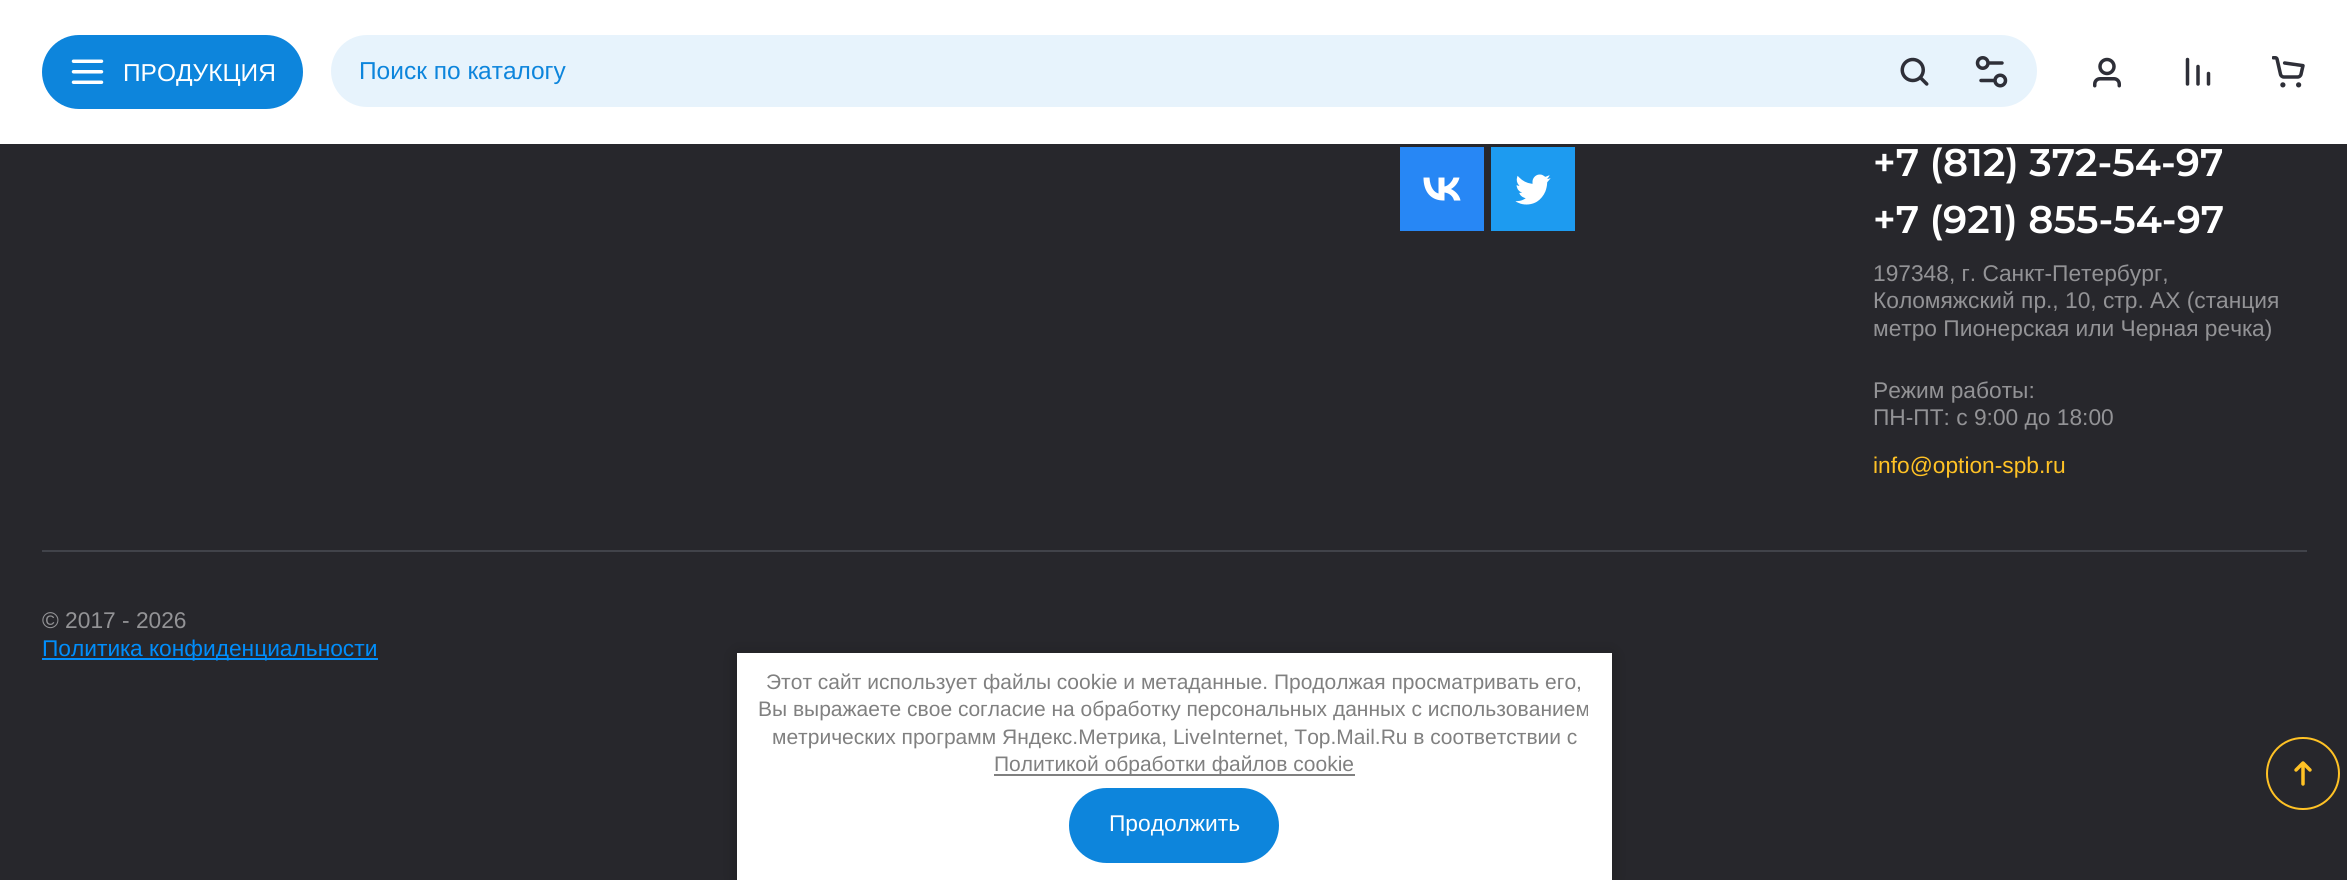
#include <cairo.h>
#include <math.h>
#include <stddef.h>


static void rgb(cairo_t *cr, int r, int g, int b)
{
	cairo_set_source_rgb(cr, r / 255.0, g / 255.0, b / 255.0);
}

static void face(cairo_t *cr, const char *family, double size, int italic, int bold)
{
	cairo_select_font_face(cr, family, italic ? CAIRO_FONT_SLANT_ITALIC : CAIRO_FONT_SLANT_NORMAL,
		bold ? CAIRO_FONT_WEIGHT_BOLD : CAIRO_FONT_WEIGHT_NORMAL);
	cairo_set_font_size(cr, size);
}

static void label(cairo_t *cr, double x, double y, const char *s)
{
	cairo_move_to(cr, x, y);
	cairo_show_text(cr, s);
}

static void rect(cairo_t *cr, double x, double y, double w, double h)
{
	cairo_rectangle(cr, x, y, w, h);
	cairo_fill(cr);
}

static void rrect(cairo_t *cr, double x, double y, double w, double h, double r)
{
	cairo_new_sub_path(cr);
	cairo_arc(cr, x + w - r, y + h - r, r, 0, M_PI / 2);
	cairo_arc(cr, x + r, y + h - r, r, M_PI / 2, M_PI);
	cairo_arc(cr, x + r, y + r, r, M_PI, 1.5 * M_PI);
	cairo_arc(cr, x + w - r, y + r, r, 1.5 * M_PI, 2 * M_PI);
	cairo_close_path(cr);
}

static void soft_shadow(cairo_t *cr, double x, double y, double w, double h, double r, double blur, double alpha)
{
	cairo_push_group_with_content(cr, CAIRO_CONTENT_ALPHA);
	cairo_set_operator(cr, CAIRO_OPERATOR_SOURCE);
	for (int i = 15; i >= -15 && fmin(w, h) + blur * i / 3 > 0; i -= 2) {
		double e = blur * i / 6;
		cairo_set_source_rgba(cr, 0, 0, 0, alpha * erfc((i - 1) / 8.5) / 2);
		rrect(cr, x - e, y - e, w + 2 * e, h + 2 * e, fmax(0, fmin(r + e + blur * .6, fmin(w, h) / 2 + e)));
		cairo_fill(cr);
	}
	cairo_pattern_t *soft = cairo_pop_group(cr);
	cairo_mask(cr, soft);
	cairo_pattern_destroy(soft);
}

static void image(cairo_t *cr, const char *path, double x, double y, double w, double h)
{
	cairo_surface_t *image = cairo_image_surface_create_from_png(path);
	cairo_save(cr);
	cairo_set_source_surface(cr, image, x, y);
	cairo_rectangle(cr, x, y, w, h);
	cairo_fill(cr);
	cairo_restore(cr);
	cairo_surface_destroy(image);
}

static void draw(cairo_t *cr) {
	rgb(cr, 39, 39, 44);
	cairo_paint(cr);
	rgb(cr, 255, 255, 255);
	rect(cr, 0, 0, 2347, 144);
	rgb(cr, 13, 133, 220);
	rrect(cr, 42, 35, 261, 74, 37);
	cairo_fill(cr);
	image(cr, "image0.png", 71, 59, 33, 25);
	face(cr, "Liberation Sans", 24.5, 0, 0);
	rgb(cr, 255, 255, 255);
	label(cr, 123, 81, "ПРОДУКЦИЯ");
	rgb(cr, 231, 243, 252);
	rrect(cr, 331, 35, 1706, 72, 36);
	cairo_fill(cr);
	rgb(cr, 13, 133, 220);
	label(cr, 359, 79, "Поиск по каталогу");
	image(cr, "image1.png", 1900, 57, 29, 29);
	image(cr, "image2.png", 1975, 56, 33, 32);
	image(cr, "image3.png", 2093, 57, 28, 31);
	image(cr, "image4.png", 2185, 57, 26, 29);
	image(cr, "image5.png", 2272, 56, 33, 32);
	rgb(cr, 65, 67, 74);
	rect(cr, 42, 550, 2265, 2);
	rgb(cr, 39, 135, 245);
	rect(cr, 1400, 147, 84, 84);
	rgb(cr, 255, 255, 255);
	cairo_new_path(cr);
	cairo_move_to(cr, 1443.5, 200.5);
	cairo_curve_to(cr, 1431, 200.5, 1423.5, 192, 1423.5, 177.5);
	cairo_line_to(cr, 1429.5, 177.5);
	cairo_curve_to(cr, 1430, 188, 1434.5, 192.5, 1438.5, 193.5);
	cairo_line_to(cr, 1438.5, 177.5);
	cairo_line_to(cr, 1444.5, 177.5);
	cairo_line_to(cr, 1444.5, 186.5);
	cairo_curve_to(cr, 1448, 186, 1452, 182, 1453.5, 177.5);
	cairo_line_to(cr, 1459.5, 177.5);
	cairo_curve_to(cr, 1458.5, 182, 1455.5, 186.5, 1451, 189);
	cairo_curve_to(cr, 1456, 191.5, 1459.5, 195.5, 1460.5, 200.5);
	cairo_line_to(cr, 1454, 200.5);
	cairo_curve_to(cr, 1453, 196, 1449, 193, 1444.5, 192.5);
	cairo_line_to(cr, 1444.5, 200.5);
	cairo_close_path(cr);
	cairo_fill(cr);
	image(cr, "image6.png", 1491, 147, 84, 84);
	face(cr, "Montserrat SemiBold", 38.5, 0, 0);
	label(cr, 1873, 176, "+7 (812) 372-54-97");
	label(cr, 1873, 233, "+7 (921) 855-54-97");
	face(cr, "Liberation Sans", 22.75, 0, 0);
	rgb(cr, 147, 147, 150);
	label(cr, 1873, 281, "197348, г. Санкт-Петербург,");
	label(cr, 1873, 308, "Коломяжский пр., 10, стр. АХ (станция");
	label(cr, 1873, 336, "метро Пионерская или Черная речка)");
	label(cr, 1873, 398, "Режим работы:");
	label(cr, 1873, 425, "ПН-ПТ: с 9:00 до 18:00");
	rgb(cr, 255, 194, 37);
	label(cr, 1873, 473, "info@option-spb.ru");
	rgb(cr, 147, 147, 150);
	label(cr, 42, 628, "© 2017 - 2026");
	rgb(cr, 0, 142, 252);
	rect(cr, 42, 658, 336, 2);
	label(cr, 42, 656, "Политика конфиденциальности");
	rrect(cr, 2267, 738, 72, 71, 35.5);
	rgb(cr, 255, 194, 37);
	cairo_stroke(cr);
	image(cr, "image7.png", 2294, 761, 18, 25);
	rgb(cr, 0, 0, 0);
	soft_shadow(cr, 737, 655, 875, 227, 0, 9, 0.23);
	rgb(cr, 255, 255, 255);
	rect(cr, 737, 653, 875, 227);
	face(cr, "Liberation Sans", 21, 0, 0);
	rgb(cr, 128, 128, 128);
	label(cr, 766, 689, "Этот сайт использует файлы cookie и метаданные. Продолжая просматривать его,");
	label(cr, 758, 716, "Вы выражаете свое согласие на обработку персональных данных с использованием");
	label(cr, 772, 744, "метрических программ Яндекс.Метрика, LiveInternet, Top.Mail.Ru в соответствии с");
	rect(cr, 994, 774, 361, 2);
	label(cr, 994, 771, "Политикой обработки файлов cookie");
	rgb(cr, 13, 133, 220);
	rrect(cr, 1069, 788, 210, 75, 37.5);
	cairo_fill(cr);
	face(cr, "Liberation Sans", 22.75, 0, 0);
	rgb(cr, 255, 255, 255);
	label(cr, 1109, 831, "Продолжить");
}

int main(void) {
	cairo_surface_t *surface = cairo_image_surface_create(CAIRO_FORMAT_RGB24, 2347, 880);
	cairo_t *cr = cairo_create(surface);
	cairo_font_options_t *options = cairo_font_options_create();
	cairo_font_options_set_hint_metrics(options, CAIRO_HINT_METRICS_OFF);
	cairo_font_options_set_hint_style(options, CAIRO_HINT_STYLE_NONE);
	cairo_set_font_options(cr, options);
	cairo_set_miter_limit(cr, 4);
	draw(cr);
	cairo_surface_write_to_png(surface, "render.png");
	cairo_font_options_destroy(options);
	cairo_destroy(cr);
	cairo_surface_destroy(surface);
	return 0;
}
